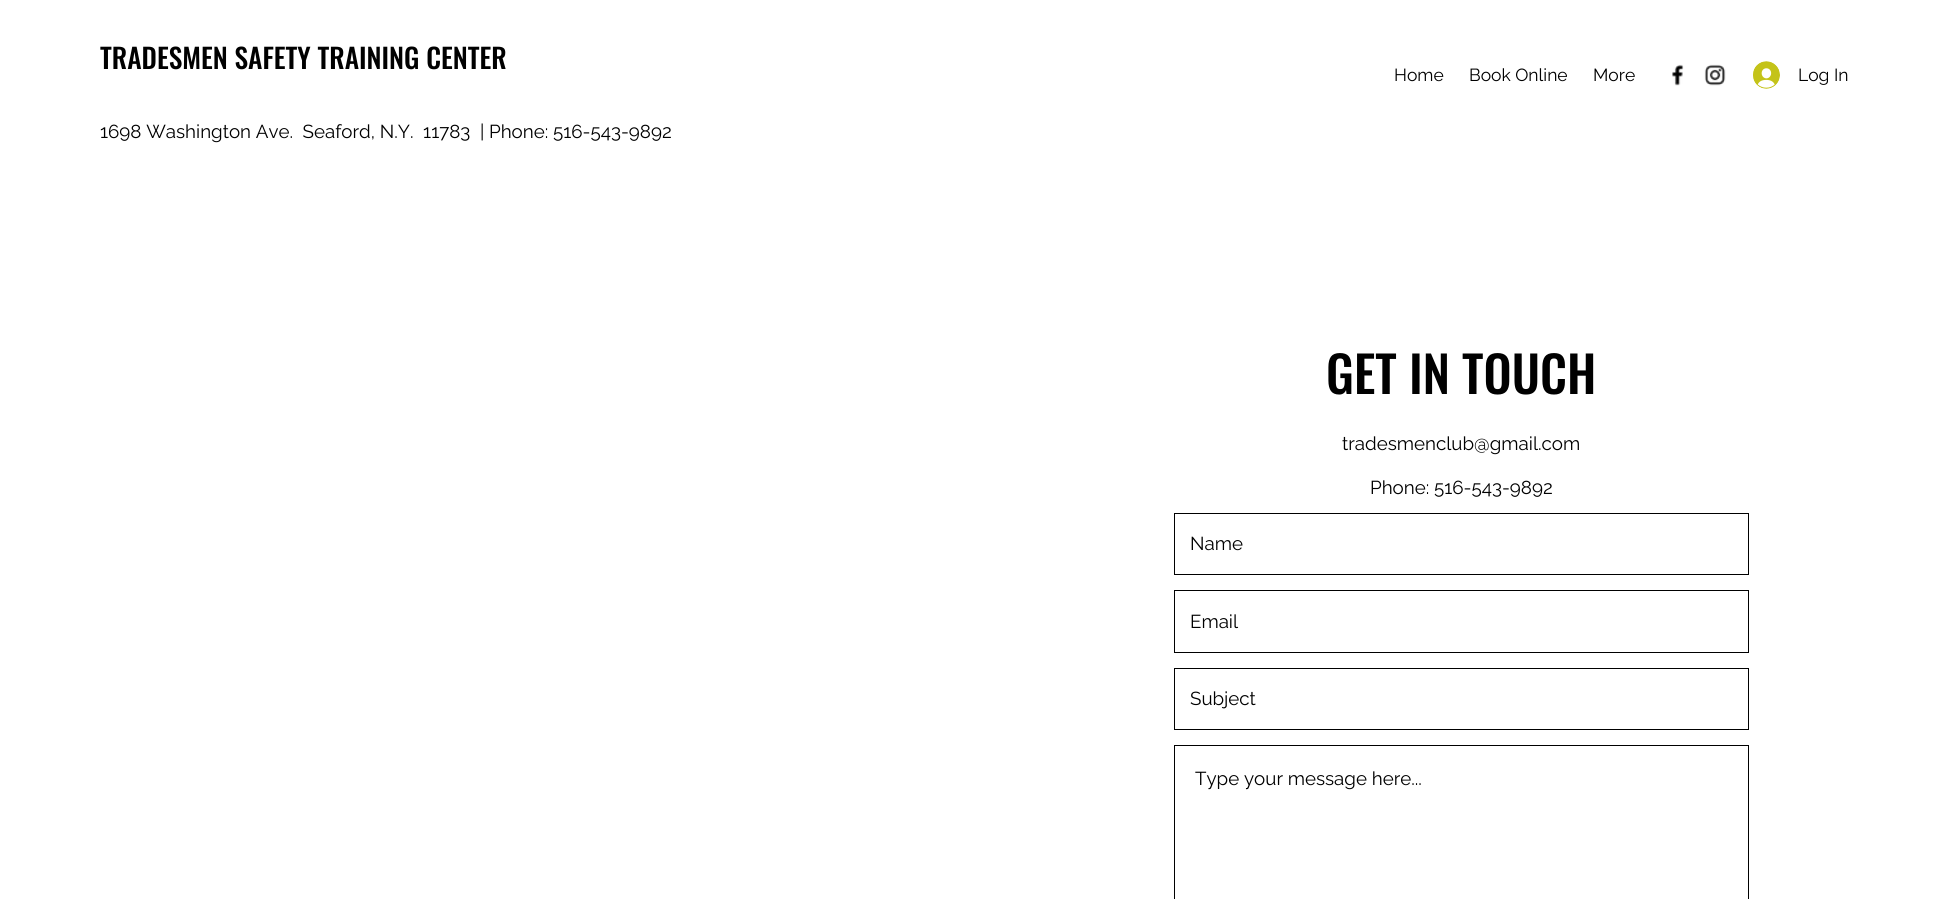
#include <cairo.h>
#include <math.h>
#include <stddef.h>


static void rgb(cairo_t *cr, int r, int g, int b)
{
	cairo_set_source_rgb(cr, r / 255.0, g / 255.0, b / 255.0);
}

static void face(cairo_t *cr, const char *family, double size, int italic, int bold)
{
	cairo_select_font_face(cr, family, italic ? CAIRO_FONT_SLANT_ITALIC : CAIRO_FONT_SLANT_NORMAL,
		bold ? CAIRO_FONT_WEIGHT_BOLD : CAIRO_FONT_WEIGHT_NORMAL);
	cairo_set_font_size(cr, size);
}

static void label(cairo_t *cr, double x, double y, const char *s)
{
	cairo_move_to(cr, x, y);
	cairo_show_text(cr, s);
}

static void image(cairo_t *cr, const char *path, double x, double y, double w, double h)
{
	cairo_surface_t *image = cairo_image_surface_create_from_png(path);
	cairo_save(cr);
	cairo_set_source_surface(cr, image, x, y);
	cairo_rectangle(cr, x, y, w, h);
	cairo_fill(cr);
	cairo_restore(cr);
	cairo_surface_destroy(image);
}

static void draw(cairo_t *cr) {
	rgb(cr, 255, 255, 255);
	cairo_paint(cr);
	face(cr, "Oswald Medium", 27.5, 0, 0);
	rgb(cr, 0, 0, 0);
	label(cr, 100, 69, "TRADESMEN SAFETY TRAINING CENTER");
	face(cr, "Raleway", 18.75, 0, 0);
	label(cr, 100, 138, "1698 Washington Ave.  Seaford, N.Y.  11783  | Phone: 516-543-9892");
	face(cr, "Raleway", 17.5, 0, 0);
	label(cr, 1394, 81, "Home");
	label(cr, 1469, 81, "Book Online");
	label(cr, 1593, 81, "More");
	image(cr, "image0.png", 1672, 64, 12, 22);
	image(cr, "image1.png", 1704, 64, 22, 22);
	image(cr, "image2.png", 1753, 61, 27, 28);
	label(cr, 1798, 81, "Log In");
	face(cr, "Oswald Medium", 50, 0, 0);
	label(cr, 1326, 394, "GET IN TOUCH");
	face(cr, "Raleway", 18.75, 0, 0);
	label(cr, 1342, 450, "tradesmenclub@gmail.com");
	label(cr, 1370, 494, "Phone: 516-543-9892");
	cairo_rectangle(cr, 1174.5, 513.5, 574, 61);
	cairo_set_line_width(cr, 1);
	cairo_stroke(cr);
	label(cr, 1190, 550, "Name");
	cairo_rectangle(cr, 1174.5, 590.5, 574, 62);
	cairo_stroke(cr);
	label(cr, 1190, 628, "Email");
	cairo_rectangle(cr, 1174.5, 668.5, 574, 61);
	cairo_stroke(cr);
	label(cr, 1190, 705, "Subject");
	cairo_rectangle(cr, 1174.5, 745.5, 574, 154);
	cairo_stroke(cr);
	label(cr, 1195, 785, "Type your message here...");
}

int main(void) {
	cairo_surface_t *surface = cairo_image_surface_create(CAIRO_FORMAT_RGB24, 1948, 899);
	cairo_t *cr = cairo_create(surface);
	cairo_font_options_t *options = cairo_font_options_create();
	cairo_font_options_set_hint_metrics(options, CAIRO_HINT_METRICS_OFF);
	cairo_font_options_set_hint_style(options, CAIRO_HINT_STYLE_NONE);
	cairo_set_font_options(cr, options);
	cairo_set_miter_limit(cr, 4);
	draw(cr);
	cairo_surface_write_to_png(surface, "render.png");
	cairo_font_options_destroy(options);
	cairo_destroy(cr);
	cairo_surface_destroy(surface);
	return 0;
}
